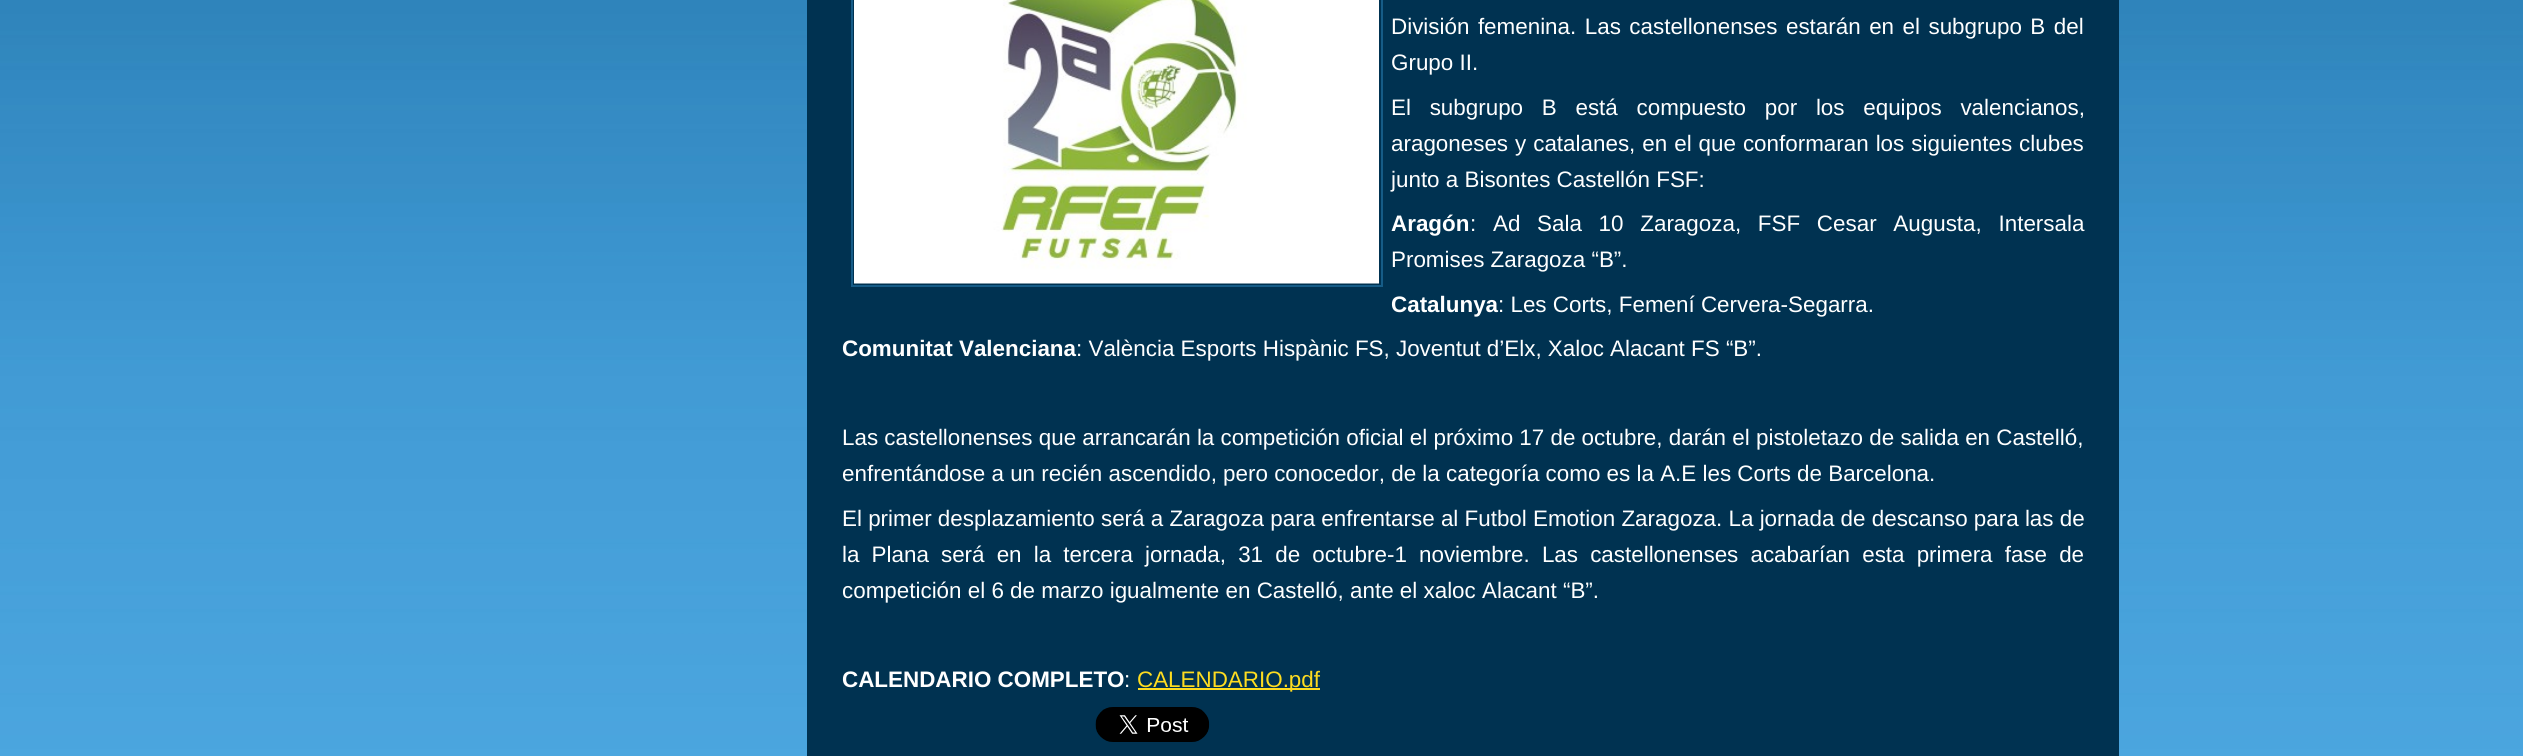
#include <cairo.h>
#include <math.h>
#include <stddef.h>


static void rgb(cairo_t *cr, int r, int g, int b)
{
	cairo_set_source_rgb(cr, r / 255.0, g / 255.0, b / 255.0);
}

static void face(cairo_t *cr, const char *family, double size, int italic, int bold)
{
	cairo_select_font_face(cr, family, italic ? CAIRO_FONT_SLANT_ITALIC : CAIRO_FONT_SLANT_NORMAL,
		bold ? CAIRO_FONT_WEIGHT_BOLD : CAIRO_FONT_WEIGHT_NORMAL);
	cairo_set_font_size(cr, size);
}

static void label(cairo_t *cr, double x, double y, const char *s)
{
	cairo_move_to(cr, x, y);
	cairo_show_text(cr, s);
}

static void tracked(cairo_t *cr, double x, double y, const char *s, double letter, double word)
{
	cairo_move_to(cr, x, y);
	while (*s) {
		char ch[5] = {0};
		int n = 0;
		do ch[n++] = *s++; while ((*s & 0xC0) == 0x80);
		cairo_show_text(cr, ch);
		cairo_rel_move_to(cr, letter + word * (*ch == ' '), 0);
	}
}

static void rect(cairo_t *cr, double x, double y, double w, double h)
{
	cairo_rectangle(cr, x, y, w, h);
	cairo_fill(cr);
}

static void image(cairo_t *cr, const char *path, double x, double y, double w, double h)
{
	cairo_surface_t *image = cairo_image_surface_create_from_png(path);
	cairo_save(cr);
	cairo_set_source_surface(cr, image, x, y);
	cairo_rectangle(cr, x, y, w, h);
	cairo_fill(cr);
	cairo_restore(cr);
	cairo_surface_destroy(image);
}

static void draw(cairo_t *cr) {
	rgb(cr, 255, 255, 255);
	cairo_paint(cr);
	image(cr, "image0.png", 0, 0, 2523, 756);
	rgb(cr, 0, 50, 81);
	rect(cr, 807, 0, 1312, 756);
	cairo_rectangle(cr, 852, -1, 530, 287);
	rgb(cr, 22, 92, 135);
	cairo_stroke(cr);
	image(cr, "image1.png", 854, 0, 525, 284);
	face(cr, "Liberation Sans", 22.4, 0, 0);
	rgb(cr, 255, 255, 255);
	tracked(cr, 1391, 34, "División femenina. Las castellonenses estarán en el subgrupo B del", 0, 2.25);
	label(cr, 1391, 70, "Grupo II.");
	tracked(cr, 1391, 115, "El subgrupo B está compuesto por los equipos valencianos,", 0, 12.5);
	tracked(cr, 1391, 151, "aragoneses y catalanes, en el que conformaran los siguientes clubes", 0, 0.75);
	label(cr, 1391, 187, "junto a Bisontes Castellón FSF:");
	face(cr, "Liberation Sans", 22.4, 0, 1);
	label(cr, 1391, 231, "Aragón");
	face(cr, "Liberation Sans", 22.4, 0, 0);
	tracked(cr, 1470, 231, ": Ad Sala 10 Zaragoza, FSF Cesar Augusta, Intersala", 0, 10.5);
	label(cr, 1391, 267, "Promises Zaragoza “B”.");
	face(cr, "Liberation Sans", 22.4, 0, 1);
	label(cr, 1391, 312, "Catalunya");
	face(cr, "Liberation Sans", 22.4, 0, 0);
	label(cr, 1498, 312, ": Les Corts, Femení Cervera-Segarra.");
	face(cr, "Liberation Sans", 22.4, 0, 1);
	label(cr, 842, 356, "Comunitat Valenciana");
	face(cr, "Liberation Sans", 22.4, 0, 0);
	label(cr, 1076, 356, ": València Esports Hispànic FS, Joventut d’Elx, Xaloc Alacant FS “B”.");
	label(cr, 842, 445, "Las castellonenses que arrancarán la competición oficial el próximo 17 de octubre, darán el pistoletazo de salida en Castelló,");
	label(cr, 842, 481, "enfrentándose a un recién ascendido, pero conocedor, de la categoría como es la A.E les Corts de Barcelona.");
	label(cr, 842, 526, "El primer desplazamiento será a Zaragoza para enfrentarse al Futbol Emotion Zaragoza. La jornada de descanso para las de");
	tracked(cr, 842, 562, "la Plana será en la tercera jornada, 31 de octubre-1 noviembre. Las castellonenses acabarían esta primera fase de", 0, 5.9);
	label(cr, 842, 598, "competición el 6 de marzo igualmente en Castelló, ante el xaloc Alacant “B”.");
	face(cr, "Liberation Sans", 22.4, 0, 1);
	label(cr, 842, 687, "CALENDARIO COMPLETO");
	face(cr, "Liberation Sans", 22.4, 0, 0);
	label(cr, 1124, 687, ":");
	rgb(cr, 254, 220, 32);
	rect(cr, 1138, 688, 182, 2);
	label(cr, 1137, 687, "CALENDARIO.pdf");
	image(cr, "image2.png", 1095, 707, 115, 35);
}

int main(void) {
	cairo_surface_t *surface = cairo_image_surface_create(CAIRO_FORMAT_RGB24, 2523, 756);
	cairo_t *cr = cairo_create(surface);
	cairo_font_options_t *options = cairo_font_options_create();
	cairo_font_options_set_hint_metrics(options, CAIRO_HINT_METRICS_OFF);
	cairo_font_options_set_hint_style(options, CAIRO_HINT_STYLE_NONE);
	cairo_set_font_options(cr, options);
	cairo_set_miter_limit(cr, 4);
	draw(cr);
	cairo_surface_write_to_png(surface, "render.png");
	cairo_font_options_destroy(options);
	cairo_destroy(cr);
	cairo_surface_destroy(surface);
	return 0;
}
